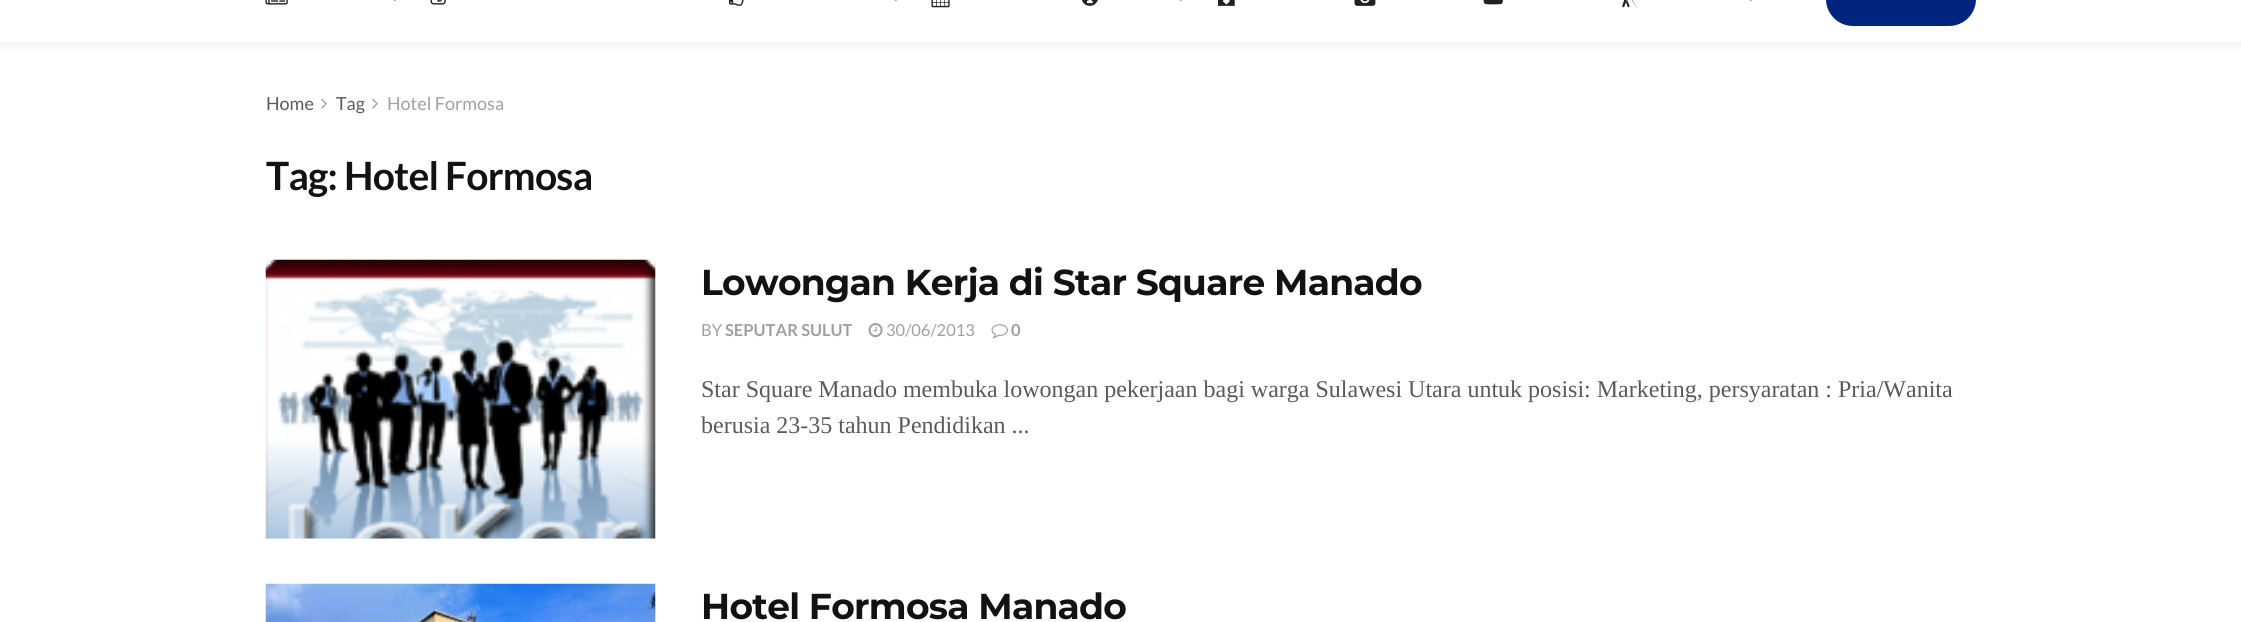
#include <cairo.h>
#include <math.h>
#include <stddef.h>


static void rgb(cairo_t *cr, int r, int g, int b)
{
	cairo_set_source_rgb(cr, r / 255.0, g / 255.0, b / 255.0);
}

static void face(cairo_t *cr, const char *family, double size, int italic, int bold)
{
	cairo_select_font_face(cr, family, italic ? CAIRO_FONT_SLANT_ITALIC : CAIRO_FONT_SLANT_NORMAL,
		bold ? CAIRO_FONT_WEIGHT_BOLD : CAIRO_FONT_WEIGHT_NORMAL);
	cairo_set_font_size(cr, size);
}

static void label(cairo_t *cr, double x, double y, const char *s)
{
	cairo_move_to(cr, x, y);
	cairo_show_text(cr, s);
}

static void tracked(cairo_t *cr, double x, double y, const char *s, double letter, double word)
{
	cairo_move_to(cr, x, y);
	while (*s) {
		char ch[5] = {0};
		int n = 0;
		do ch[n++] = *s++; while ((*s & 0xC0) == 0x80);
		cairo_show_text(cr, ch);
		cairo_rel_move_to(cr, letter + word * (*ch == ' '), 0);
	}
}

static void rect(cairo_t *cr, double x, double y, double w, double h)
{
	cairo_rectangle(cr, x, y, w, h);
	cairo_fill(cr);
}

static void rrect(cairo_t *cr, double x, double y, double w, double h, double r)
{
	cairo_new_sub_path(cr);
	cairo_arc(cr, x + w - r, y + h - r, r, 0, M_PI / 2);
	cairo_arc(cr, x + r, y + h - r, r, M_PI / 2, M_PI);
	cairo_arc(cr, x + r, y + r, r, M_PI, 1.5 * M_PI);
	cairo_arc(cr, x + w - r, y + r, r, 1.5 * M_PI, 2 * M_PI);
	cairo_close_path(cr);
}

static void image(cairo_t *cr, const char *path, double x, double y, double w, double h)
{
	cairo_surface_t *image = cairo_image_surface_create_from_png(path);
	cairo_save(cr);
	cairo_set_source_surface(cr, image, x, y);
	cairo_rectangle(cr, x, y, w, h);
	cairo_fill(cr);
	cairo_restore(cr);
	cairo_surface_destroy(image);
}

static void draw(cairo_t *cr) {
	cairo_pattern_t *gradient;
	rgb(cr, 255, 255, 255);
	cairo_paint(cr);
	image(cr, "image0.png", 265, 0, 23, 5);
	image(cr, "image1.png", 393, 0, 3, 2);
	image(cr, "image2.png", 430, 0, 16, 5);
	image(cr, "image3.png", 729, 0, 15, 6);
	image(cr, "image1.png", 894, 0, 3, 2);
	image(cr, "image4.png", 931, 0, 19, 8);
	image(cr, "image5.png", 1082, 0, 16, 6);
	image(cr, "image1.png", 1179, 0, 3, 2);
	image(cr, "image6.png", 1218, 0, 17, 6);
	image(cr, "image7.png", 1354, 0, 22, 6);
	image(cr, "image8.png", 1483, 0, 20, 5);
	image(cr, "image9.png", 1622, 0, 15, 8);
	image(cr, "image1.png", 1749, 0, 3, 2);
	rgb(cr, 1, 36, 126);
	rrect(cr, 1826, -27, 150, 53, 27);
	cairo_fill(cr);
	gradient = cairo_pattern_create_linear(1121, 42, 1121, 54);
	cairo_pattern_add_color_stop_rgba(gradient, 0, 0.949, 0.949, 0.949, 1);
	cairo_pattern_add_color_stop_rgba(gradient, 1, 1, 1, 1, 1);
	cairo_set_source(cr, gradient);
	cairo_pattern_destroy(gradient);
	rect(cr, 0, 42, 2241, 10);
	face(cr, "Lato", 18, 0, 0);
	rgb(cr, 90, 90, 90);
	label(cr, 266, 110, "Home");
	image(cr, "image10.png", 321, 98, 6, 11);
	label(cr, 336, 110, "Tag");
	image(cr, "image10.png", 372, 98, 6, 11);
	rgb(cr, 160, 160, 160);
	label(cr, 387, 110, "Hotel Formosa");
	face(cr, "Lato", 39, 0, 1);
	rgb(cr, 18, 18, 18);
	tracked(cr, 266, 190, "Tag: Hotel Formosa", -0.75, 0);
	rgb(cr, 247, 247, 247);
	rect(cr, 266, 260, 390, 279);
	image(cr, "image11.png", 265, 259, 391, 280);
	face(cr, "Montserrat", 36, 0, 1);
	rgb(cr, 18, 18, 18);
	tracked(cr, 701, 295, "Lowongan Kerja di Star Square Manado", -0.7, 0);
	face(cr, "Lato", 16.5, 0, 0);
	rgb(cr, 160, 160, 160);
	label(cr, 701, 336, "BY");
	face(cr, "Lato", 16.5, 0, 1);
	label(cr, 725, 336, "SEPUTAR SULUT");
	image(cr, "image12.png", 868, 323, 15, 15);
	face(cr, "Lato", 16.5, 0, 0);
	label(cr, 886, 336, "30/06/2013");
	image(cr, "image13.png", 991, 324, 17, 15);
	face(cr, "Lato", 16.5, 0, 1);
	label(cr, 1011, 336, "0");
	face(cr, "Liberation Serif", 24, 0, 0);
	rgb(cr, 90, 90, 90);
	label(cr, 701, 397, "Star Square Manado membuka lowongan pekerjaan bagi warga Sulawesi Utara untuk posisi: Marketing, persyaratan : Pria/Wanita");
	label(cr, 701, 433, "berusia 23-35 tahun Pendidikan ...");
	rgb(cr, 247, 247, 247);
	rect(cr, 655, 584, 1, 38);
	image(cr, "image14.png", 265, 583, 391, 39);
	face(cr, "Montserrat", 36, 0, 1);
	rgb(cr, 18, 18, 18);
	tracked(cr, 701, 619, "Hotel Formosa Manado", -0.7, 0);
}

int main(void) {
	cairo_surface_t *surface = cairo_image_surface_create(CAIRO_FORMAT_RGB24, 2241, 622);
	cairo_t *cr = cairo_create(surface);
	cairo_font_options_t *options = cairo_font_options_create();
	cairo_font_options_set_hint_metrics(options, CAIRO_HINT_METRICS_OFF);
	cairo_font_options_set_hint_style(options, CAIRO_HINT_STYLE_NONE);
	cairo_set_font_options(cr, options);
	cairo_set_miter_limit(cr, 4);
	draw(cr);
	cairo_surface_write_to_png(surface, "render.png");
	cairo_font_options_destroy(options);
	cairo_destroy(cr);
	cairo_surface_destroy(surface);
	return 0;
}
